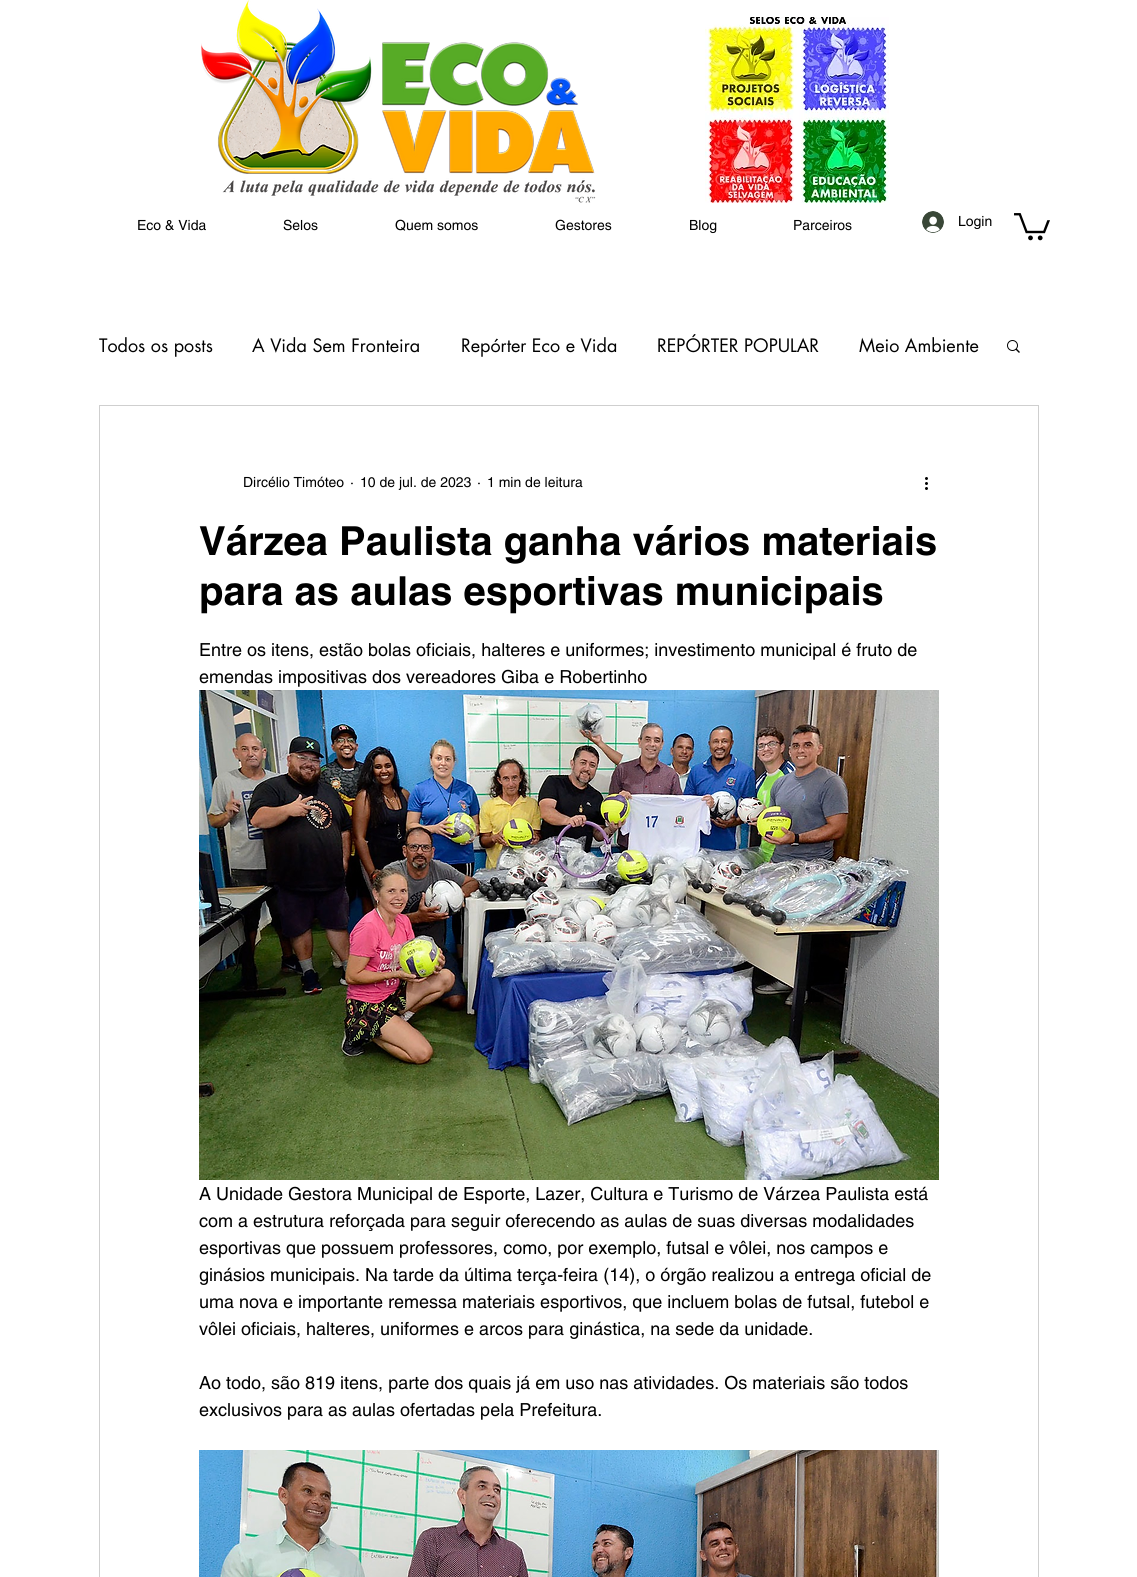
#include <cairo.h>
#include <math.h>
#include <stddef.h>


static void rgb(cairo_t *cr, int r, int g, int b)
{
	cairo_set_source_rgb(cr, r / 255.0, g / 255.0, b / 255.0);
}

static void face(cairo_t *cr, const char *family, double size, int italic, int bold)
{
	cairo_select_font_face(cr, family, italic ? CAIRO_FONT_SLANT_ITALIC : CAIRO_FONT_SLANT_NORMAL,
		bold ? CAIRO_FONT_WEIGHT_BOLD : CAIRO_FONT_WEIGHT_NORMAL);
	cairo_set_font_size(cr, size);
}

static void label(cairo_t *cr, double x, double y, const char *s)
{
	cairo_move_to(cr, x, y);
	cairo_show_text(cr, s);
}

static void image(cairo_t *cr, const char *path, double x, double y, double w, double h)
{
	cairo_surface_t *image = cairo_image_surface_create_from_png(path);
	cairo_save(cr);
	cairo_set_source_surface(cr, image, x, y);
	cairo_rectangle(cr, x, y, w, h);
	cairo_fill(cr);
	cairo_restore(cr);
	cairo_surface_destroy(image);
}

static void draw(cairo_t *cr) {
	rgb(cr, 255, 255, 255);
	cairo_paint(cr);
	image(cr, "image0.png", 201, 0, 395, 203);
	image(cr, "image1.png", 705, 17, 184, 186);
	face(cr, "helvetica", 14, 0, 0);
	rgb(cr, 0, 0, 0);
	label(cr, 137, 230, "Eco & Vida");
	label(cr, 283, 230, "Selos");
	label(cr, 395, 230, "Quem somos");
	label(cr, 555, 230, "Gestores");
	label(cr, 689, 230, "Blog");
	label(cr, 793, 230, "Parceiros");
	image(cr, "image2.png", 922, 211, 22, 22);
	label(cr, 958, 226, "Login");
	image(cr, "image3.png", 1014, 213, 36, 28);
	face(cr, "futura", 18, 0, 0);
	label(cr, 99, 352, "Todos os posts");
	label(cr, 252, 352, "A Vida Sem Fronteira");
	label(cr, 461, 352, "Repórter Eco e Vida");
	label(cr, 657, 352, "REPÓRTER POPULAR");
	label(cr, 859, 352, "Meio Ambiente");
	image(cr, "image4.png", 1007, 340, 13, 13);
	cairo_rectangle(cr, 99.5, 405.5, 939, 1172);
	rgb(cr, 207, 207, 207);
	cairo_set_line_width(cr, 1);
	cairo_stroke(cr);
	face(cr, "helvetica", 14, 0, 0);
	rgb(cr, 0, 0, 0);
	label(cr, 243, 487, "Dircélio Timóteo");
	label(cr, 350, 487, "·");
	label(cr, 360, 487, "10 de jul. de 2023");
	label(cr, 477, 487, "·");
	label(cr, 487, 487, "1 min de leitura");
	image(cr, "image5.png", 925, 477, 3, 13);
	face(cr, "helvetica", 40, 0, 1);
	label(cr, 199, 555, "Várzea Paulista ganha vários materiais");
	label(cr, 199, 605, "para as aulas esportivas municipais");
	face(cr, "helvetica", 18, 0, 0);
	label(cr, 199, 656, "Entre os itens, estão bolas oficiais, halteres e uniformes; investimento municipal é fruto de");
	label(cr, 199, 683, "emendas impositivas dos vereadores Giba e Robertinho");
	image(cr, "image6.png", 199, 690, 740, 490);
	label(cr, 199, 1200, "A Unidade Gestora Municipal de Esporte, Lazer, Cultura e Turismo de Várzea Paulista está");
	label(cr, 199, 1227, "com a estrutura reforçada para seguir oferecendo as aulas de suas diversas modalidades");
	label(cr, 199, 1254, "esportivas que possuem professores, como, por exemplo, futsal e vôlei, nos campos e");
	label(cr, 199, 1281, "ginásios municipais. Na tarde da última terça-feira (14), o órgão realizou a entrega oficial de");
	label(cr, 199, 1308, "uma nova e importante remessa materiais esportivos, que incluem bolas de futsal, futebol e");
	label(cr, 199, 1335, "vôlei oficiais, halteres, uniformes e arcos para ginástica, na sede da unidade.");
	label(cr, 199, 1389, "Ao todo, são 819 itens, parte dos quais já em uso nas atividades. Os materiais são todos");
	label(cr, 199, 1416, "exclusivos para as aulas ofertadas pela Prefeitura.");
	image(cr, "image7.png", 199, 1450, 740, 127);
}

int main(void) {
	cairo_surface_t *surface = cairo_image_surface_create(CAIRO_FORMAT_RGB24, 1137, 1577);
	cairo_t *cr = cairo_create(surface);
	cairo_font_options_t *options = cairo_font_options_create();
	cairo_font_options_set_hint_metrics(options, CAIRO_HINT_METRICS_OFF);
	cairo_font_options_set_hint_style(options, CAIRO_HINT_STYLE_NONE);
	cairo_set_font_options(cr, options);
	cairo_set_miter_limit(cr, 4);
	draw(cr);
	cairo_surface_write_to_png(surface, "render.png");
	cairo_font_options_destroy(options);
	cairo_destroy(cr);
	cairo_surface_destroy(surface);
	return 0;
}
